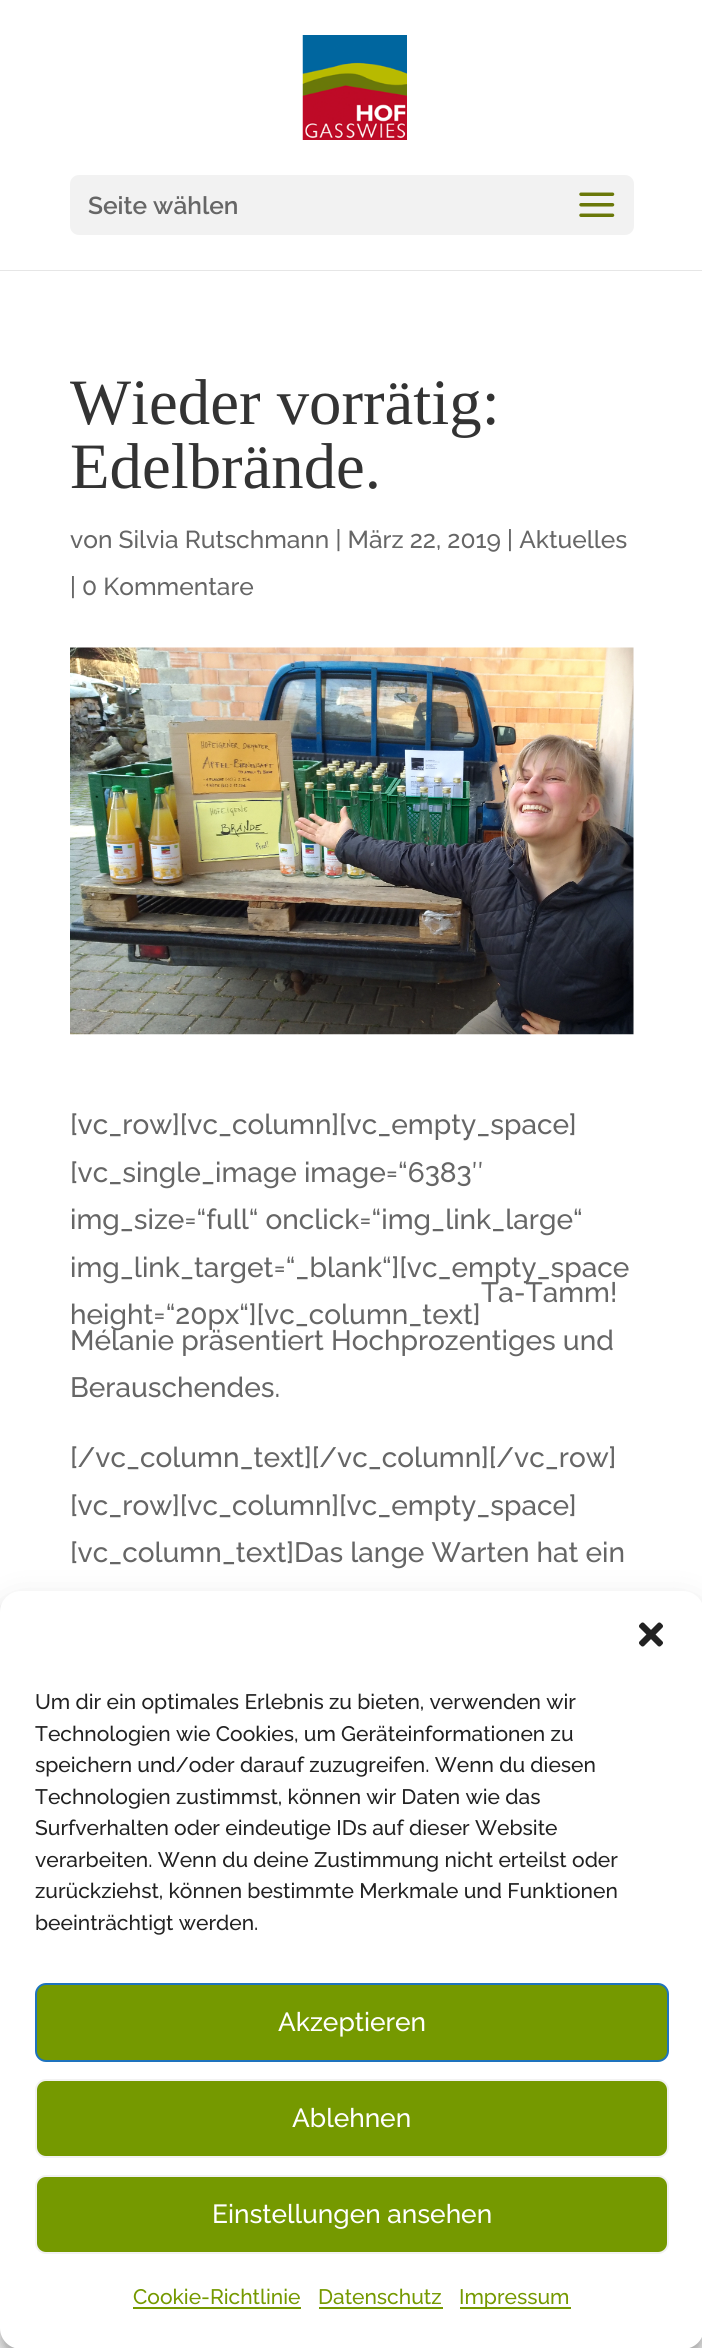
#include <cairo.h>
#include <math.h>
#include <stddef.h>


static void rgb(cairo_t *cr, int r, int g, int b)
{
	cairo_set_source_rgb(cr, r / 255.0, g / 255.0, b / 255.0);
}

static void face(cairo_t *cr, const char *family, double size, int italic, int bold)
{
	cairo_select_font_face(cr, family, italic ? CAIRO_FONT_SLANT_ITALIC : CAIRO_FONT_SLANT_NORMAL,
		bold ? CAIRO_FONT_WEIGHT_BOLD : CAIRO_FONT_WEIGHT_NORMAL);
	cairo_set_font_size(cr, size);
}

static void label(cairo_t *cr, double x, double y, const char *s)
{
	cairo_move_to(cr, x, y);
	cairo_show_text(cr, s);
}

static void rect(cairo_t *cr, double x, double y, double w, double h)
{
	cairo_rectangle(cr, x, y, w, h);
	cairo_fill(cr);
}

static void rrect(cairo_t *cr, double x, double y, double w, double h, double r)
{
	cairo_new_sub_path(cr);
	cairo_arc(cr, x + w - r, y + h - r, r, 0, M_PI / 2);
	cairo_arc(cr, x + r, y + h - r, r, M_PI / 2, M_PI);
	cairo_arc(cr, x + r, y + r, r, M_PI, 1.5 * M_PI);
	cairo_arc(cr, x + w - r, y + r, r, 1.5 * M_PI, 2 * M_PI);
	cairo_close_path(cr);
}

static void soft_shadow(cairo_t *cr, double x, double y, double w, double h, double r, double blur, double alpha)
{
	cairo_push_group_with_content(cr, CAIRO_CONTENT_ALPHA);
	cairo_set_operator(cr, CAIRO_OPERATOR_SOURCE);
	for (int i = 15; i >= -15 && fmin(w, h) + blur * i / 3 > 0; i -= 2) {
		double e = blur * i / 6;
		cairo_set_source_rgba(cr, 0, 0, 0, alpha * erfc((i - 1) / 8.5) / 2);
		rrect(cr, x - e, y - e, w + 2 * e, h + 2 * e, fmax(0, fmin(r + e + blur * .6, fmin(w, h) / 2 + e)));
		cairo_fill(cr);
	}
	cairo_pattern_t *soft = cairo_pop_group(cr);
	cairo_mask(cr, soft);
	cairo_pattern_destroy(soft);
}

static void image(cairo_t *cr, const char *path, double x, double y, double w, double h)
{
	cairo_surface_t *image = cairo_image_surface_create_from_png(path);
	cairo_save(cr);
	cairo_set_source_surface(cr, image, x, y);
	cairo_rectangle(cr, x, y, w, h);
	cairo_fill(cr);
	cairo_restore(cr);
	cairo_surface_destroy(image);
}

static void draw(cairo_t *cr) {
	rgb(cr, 255, 255, 255);
	cairo_paint(cr);
	rgb(cr, 230, 230, 230);
	cairo_new_path(cr);
	cairo_move_to(cr, 0, 270);
	cairo_line_to(cr, 0, 271);
	cairo_line_to(cr, 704, 271);
	cairo_line_to(cr, 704, 2);
	cairo_line_to(cr, 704, 270);
	cairo_close_path(cr);
	cairo_fill(cr);
	image(cr, "image0.png", 302, 35, 105, 105);
	rgb(cr, 242, 242, 242);
	rrect(cr, 70, 175, 564, 60, 9);
	cairo_fill(cr);
	face(cr, "Raleway SemiBold", 24.5, 0, 0);
	rgb(cr, 102, 102, 102);
	label(cr, 88, 214, "Seite wählen");
	image(cr, "image1.png", 579, 192, 36, 25);
	face(cr, "Liberation Serif", 64.75, 0, 0);
	rgb(cr, 51, 51, 51);
	label(cr, 70, 424, "Wieder vorrätig:");
	label(cr, 70, 488, "Edelbrände.");
	face(cr, "Raleway Medium", 24.5, 0, 0);
	rgb(cr, 102, 102, 102);
	label(cr, 70, 548, "von Silvia Rutschmann | März 22, 2019 | Aktuelles");
	label(cr, 70, 595, "| 0 Kommentare");
	image(cr, "image2.png", 70, 647, 564, 388);
	face(cr, "Raleway Medium", 28, 0, 0);
	label(cr, 70, 1134, "[vc_row][vc_column][vc_empty_space]");
	label(cr, 70, 1182, "[vc_single_image image=“6383″");
	label(cr, 70, 1229, "img_size=“full“ onclick=“img_link_large“");
	label(cr, 70, 1277, "img_link_target=“_blank“][vc_empty_space");
	label(cr, 481, 1302, "Ta-Tamm!");
	label(cr, 70, 1324, "height=“20px“][vc_column_text]");
	label(cr, 70, 1350, "Mélanie präsentiert Hochprozentiges und");
	label(cr, 70, 1397, "Berauschendes.");
	label(cr, 70, 1467, "[/vc_column_text][/vc_column][/vc_row]");
	label(cr, 70, 1515, "[vc_row][vc_column][vc_empty_space]");
	label(cr, 70, 1562, "[vc_column_text]Das lange Warten hat ein");
	rgb(cr, 0, 0, 0);
	soft_shadow(cr, 0, 1601, 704, 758, 21, 5, 0.23);
	soft_shadow(cr, 0, 1608, 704, 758, 21, 17.5, 0.19);
	rgb(cr, 255, 255, 255);
	rrect(cr, 0, 1591, 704, 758, 21);
	cairo_fill(cr);
	image(cr, "image3.png", 639, 1622, 24, 25);
	face(cr, "Raleway Medium", 21, 0, 0);
	rgb(cr, 34, 34, 34);
	label(cr, 35, 1709, "Um dir ein optimales Erlebnis zu bieten, verwenden wir");
	label(cr, 35, 1741, "Technologien wie Cookies, um Geräteinformationen zu");
	label(cr, 35, 1772, "speichern und/oder darauf zuzugreifen. Wenn du diesen");
	label(cr, 35, 1804, "Technologien zustimmst, können wir Daten wie das");
	label(cr, 35, 1835, "Surfverhalten oder eindeutige IDs auf dieser Website");
	label(cr, 35, 1867, "verarbeiten. Wenn du deine Zustimmung nicht erteilst oder");
	label(cr, 35, 1898, "zurückziehst, können bestimmte Merkmale und Funktionen");
	label(cr, 35, 1930, "beeinträchtigt werden.");
	rgb(cr, 117, 153, 0);
	rrect(cr, 36, 1984, 632, 77, 10);
	cairo_fill_preserve(cr);
	rgb(cr, 30, 115, 190);
	cairo_stroke(cr);
	face(cr, "Raleway Medium", 26.25, 0, 0);
	rgb(cr, 255, 255, 255);
	label(cr, 278, 2031, "Akzeptieren");
	rgb(cr, 117, 153, 0);
	rrect(cr, 36, 2080, 632, 77, 10);
	cairo_fill_preserve(cr);
	rgb(cr, 242, 242, 242);
	cairo_stroke(cr);
	rgb(cr, 255, 255, 255);
	label(cr, 292, 2127, "Ablehnen");
	rgb(cr, 117, 153, 0);
	rrect(cr, 36, 2176, 632, 77, 10);
	cairo_fill_preserve(cr);
	rgb(cr, 242, 242, 242);
	cairo_stroke(cr);
	rgb(cr, 255, 255, 255);
	label(cr, 212, 2223, "Einstellungen ansehen");
	face(cr, "Raleway Medium", 21, 0, 0);
	rgb(cr, 117, 153, 0);
	label(cr, 133, 2304, "Cookie-Richtlinie");
	rect(cr, 133, 2307, 168, 2);
	label(cr, 318, 2304, "Datenschutz");
	rect(cr, 319, 2307, 124, 2);
	rect(cr, 460, 2307, 111, 2);
	label(cr, 459, 2304, "Impressum");
}

int main(void) {
	cairo_surface_t *surface = cairo_image_surface_create(CAIRO_FORMAT_RGB24, 702, 2348);
	cairo_t *cr = cairo_create(surface);
	cairo_font_options_t *options = cairo_font_options_create();
	cairo_font_options_set_hint_metrics(options, CAIRO_HINT_METRICS_OFF);
	cairo_font_options_set_hint_style(options, CAIRO_HINT_STYLE_NONE);
	cairo_set_font_options(cr, options);
	cairo_set_miter_limit(cr, 4);
	draw(cr);
	cairo_surface_write_to_png(surface, "render.png");
	cairo_font_options_destroy(options);
	cairo_destroy(cr);
	cairo_surface_destroy(surface);
	return 0;
}
